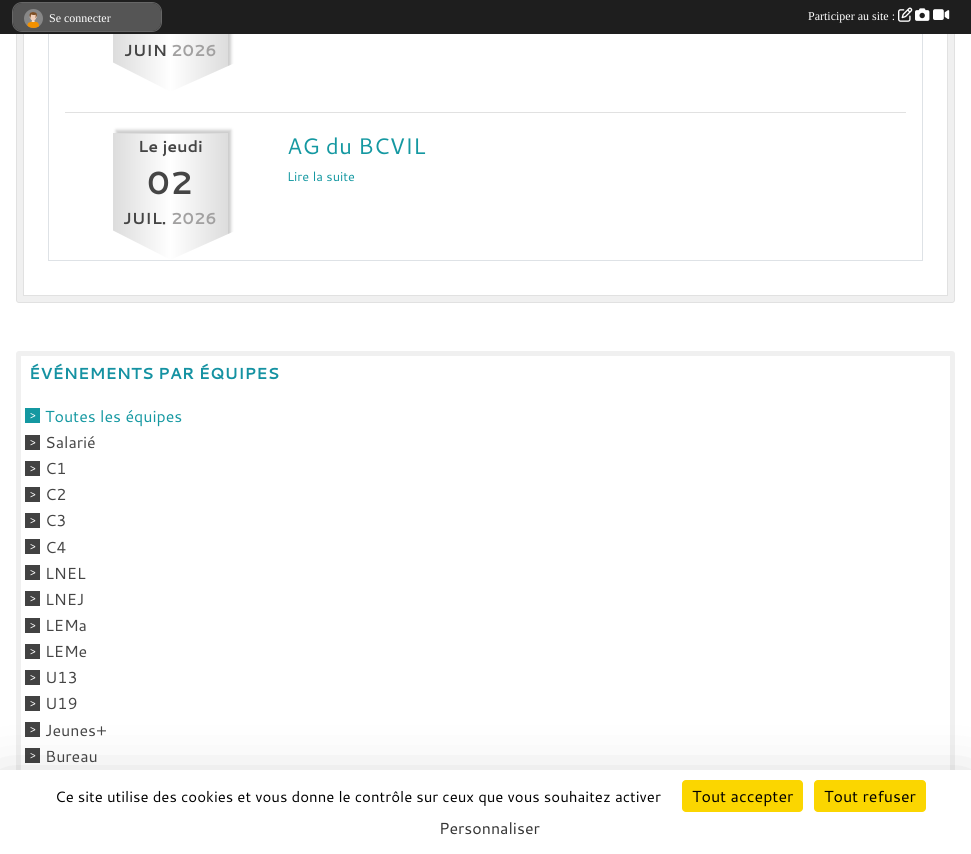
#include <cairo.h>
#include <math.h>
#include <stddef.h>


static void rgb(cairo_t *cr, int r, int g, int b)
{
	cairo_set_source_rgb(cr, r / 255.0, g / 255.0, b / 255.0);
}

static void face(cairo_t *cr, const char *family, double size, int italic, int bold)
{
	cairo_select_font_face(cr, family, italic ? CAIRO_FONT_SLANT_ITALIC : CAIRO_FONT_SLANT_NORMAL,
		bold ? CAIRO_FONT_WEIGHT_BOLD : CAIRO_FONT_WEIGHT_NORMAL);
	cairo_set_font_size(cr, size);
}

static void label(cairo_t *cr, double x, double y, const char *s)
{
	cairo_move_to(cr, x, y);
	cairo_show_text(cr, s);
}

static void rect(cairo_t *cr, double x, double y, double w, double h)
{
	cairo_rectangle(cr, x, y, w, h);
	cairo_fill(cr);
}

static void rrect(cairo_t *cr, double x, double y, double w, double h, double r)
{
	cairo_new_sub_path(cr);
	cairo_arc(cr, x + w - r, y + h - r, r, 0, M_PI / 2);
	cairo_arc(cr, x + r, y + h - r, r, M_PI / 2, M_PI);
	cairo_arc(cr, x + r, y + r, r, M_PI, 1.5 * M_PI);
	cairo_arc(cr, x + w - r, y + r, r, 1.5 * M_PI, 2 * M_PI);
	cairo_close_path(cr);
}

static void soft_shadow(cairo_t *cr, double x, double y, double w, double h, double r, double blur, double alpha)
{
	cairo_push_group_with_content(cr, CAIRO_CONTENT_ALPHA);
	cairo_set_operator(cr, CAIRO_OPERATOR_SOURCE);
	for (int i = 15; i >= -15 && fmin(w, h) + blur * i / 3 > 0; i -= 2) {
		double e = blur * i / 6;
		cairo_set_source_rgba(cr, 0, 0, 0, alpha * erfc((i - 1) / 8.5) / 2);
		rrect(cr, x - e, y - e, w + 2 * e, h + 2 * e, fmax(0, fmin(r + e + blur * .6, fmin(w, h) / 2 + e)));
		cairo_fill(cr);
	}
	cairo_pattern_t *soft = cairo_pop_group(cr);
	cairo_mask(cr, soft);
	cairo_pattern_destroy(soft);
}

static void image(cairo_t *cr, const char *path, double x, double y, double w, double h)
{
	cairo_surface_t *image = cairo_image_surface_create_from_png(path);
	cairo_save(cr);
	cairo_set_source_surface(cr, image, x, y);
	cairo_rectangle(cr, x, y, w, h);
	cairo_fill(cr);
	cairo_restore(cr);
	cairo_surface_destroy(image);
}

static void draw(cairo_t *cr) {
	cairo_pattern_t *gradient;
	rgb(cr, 255, 255, 255);
	cairo_paint(cr);
	rgb(cr, 240, 240, 240);
	rrect(cr, 16.5, -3.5, 938, 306, 2.5);
	cairo_fill_preserve(cr);
	rgb(cr, 225, 225, 225);
	cairo_set_line_width(cr, 1);
	cairo_stroke(cr);
	rgb(cr, 255, 255, 255);
	rect(cr, 24, 34, 923, 261);
	cairo_rectangle(cr, 23.5, -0.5, 924, 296);
	rgb(cr, 225, 225, 225);
	cairo_stroke(cr);
	rgb(cr, 204, 204, 204);
	soft_shadow(cr, 116, -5, 115, 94, 0, 1.5, 1);
	rgb(cr, 30, 30, 30);
	rect(cr, 0, 0, 971, 34);
	rrect(cr, 12.5, 2.5, 149, 29, 9.5);
	rgb(cr, 102, 102, 102);
	cairo_stroke(cr);
	rgb(cr, 85, 85, 85);
	rrect(cr, 13, 3, 148, 28, 9);
	cairo_fill(cr);
	image(cr, "image0.png", 24, 9, 19, 19);
	face(cr, "Liberation Serif", 12, 0, 0);
	rgb(cr, 255, 255, 255);
	label(cr, 49, 22, "Se connecter");
	label(cr, 808, 20, "Participer au site :");
	image(cr, "image1.png", 898, 7, 15, 15);
	image(cr, "image2.png", 915, 8, 15, 13);
	image(cr, "image3.png", 933, 9, 17, 11);
	rgb(cr, 222, 226, 230);
	rect(cr, 922, 34, 1, 227);
	rect(cr, 48, 260, 875, 1);
	rect(cr, 48, 34, 1, 227);
	rgb(cr, 225, 225, 225);
	rect(cr, 65, 112, 841, 1);
	gradient = cairo_pattern_create_linear(1, 29, 114, 29);
	cairo_pattern_add_color_stop_rgba(gradient, 0, 0.867, 0.867, 0.867, 1);
	cairo_pattern_add_color_stop_rgba(gradient, 0.5, 1, 1, 1, 1);
	cairo_pattern_add_color_stop_rgba(gradient, 1, 0.867, 0.867, 0.867, 1);
	cairo_set_source(cr, gradient);
	cairo_pattern_destroy(gradient);
	rect(cr, 113, 34, 1, 29);
	gradient = cairo_pattern_create_linear(114, 29, 227, 29);
	cairo_pattern_add_color_stop_rgba(gradient, 0, 0.867, 0.867, 0.867, 1);
	cairo_pattern_add_color_stop_rgba(gradient, 0.5, 1, 1, 1, 1);
	cairo_pattern_add_color_stop_rgba(gradient, 1, 0.867, 0.867, 0.867, 1);
	cairo_set_source(cr, gradient);
	cairo_pattern_destroy(gradient);
	rect(cr, 114, 34, 113, 58);
	gradient = cairo_pattern_create_linear(227, 29, 340, 29);
	cairo_pattern_add_color_stop_rgba(gradient, 0, 0.867, 0.867, 0.867, 1);
	cairo_pattern_add_color_stop_rgba(gradient, 0.5, 1, 1, 1, 1);
	cairo_pattern_add_color_stop_rgba(gradient, 1, 0.867, 0.867, 0.867, 1);
	cairo_set_source(cr, gradient);
	cairo_pattern_destroy(gradient);
	rect(cr, 227, 34, 1, 33);
	face(cr, "Cantarell", 16, 0, 1);
	rgb(cr, 69, 69, 69);
	label(cr, 124, 56, "JUIN");
	rgb(cr, 162, 161, 161);
	label(cr, 171, 56, "2026");
	rgb(cr, 255, 255, 255);
	cairo_new_path(cr);
	cairo_move_to(cr, 112, 92);
	cairo_line_to(cr, 112, 62);
	cairo_line_to(cr, 171, 92);
	cairo_close_path(cr);
	cairo_fill(cr);
	cairo_new_path(cr);
	cairo_move_to(cr, 237, 62);
	cairo_line_to(cr, 237, 92);
	cairo_line_to(cr, 170, 92);
	cairo_close_path(cr);
	cairo_fill(cr);
	rgb(cr, 204, 204, 204);
	soft_shadow(cr, 116, 130, 115, 127, 0, 1.5, 1);
	gradient = cairo_pattern_create_linear(1, 197, 114, 197);
	cairo_pattern_add_color_stop_rgba(gradient, 0, 0.867, 0.867, 0.867, 1);
	cairo_pattern_add_color_stop_rgba(gradient, 0.5, 1, 1, 1, 1);
	cairo_pattern_add_color_stop_rgba(gradient, 1, 0.867, 0.867, 0.867, 1);
	cairo_set_source(cr, gradient);
	cairo_pattern_destroy(gradient);
	rect(cr, 113, 133, 1, 98);
	gradient = cairo_pattern_create_linear(114, 197, 227, 197);
	cairo_pattern_add_color_stop_rgba(gradient, 0, 0.867, 0.867, 0.867, 1);
	cairo_pattern_add_color_stop_rgba(gradient, 0.5, 1, 1, 1, 1);
	cairo_pattern_add_color_stop_rgba(gradient, 1, 0.867, 0.867, 0.867, 1);
	cairo_set_source(cr, gradient);
	cairo_pattern_destroy(gradient);
	rect(cr, 114, 134, 113, 126);
	gradient = cairo_pattern_create_linear(227, 197, 340, 197);
	cairo_pattern_add_color_stop_rgba(gradient, 0, 0.867, 0.867, 0.867, 1);
	cairo_pattern_add_color_stop_rgba(gradient, 0.5, 1, 1, 1, 1);
	cairo_pattern_add_color_stop_rgba(gradient, 1, 0.867, 0.867, 0.867, 1);
	cairo_set_source(cr, gradient);
	cairo_pattern_destroy(gradient);
	rect(cr, 227, 133, 1, 102);
	rgb(cr, 221, 221, 221);
	rect(cr, 113, 133, 115, 1);
	rgb(cr, 69, 69, 69);
	label(cr, 138, 152, "Le jeudi");
	face(cr, "Cantarell", 32, 0, 1);
	label(cr, 147, 194, "02");
	face(cr, "Cantarell", 16, 0, 1);
	label(cr, 123, 224, "JUIL.");
	rgb(cr, 162, 161, 161);
	label(cr, 171, 224, "2026");
	rgb(cr, 255, 255, 255);
	cairo_new_path(cr);
	cairo_move_to(cr, 112, 260);
	cairo_line_to(cr, 112, 230);
	cairo_line_to(cr, 171, 260);
	cairo_close_path(cr);
	cairo_fill(cr);
	cairo_new_path(cr);
	cairo_move_to(cr, 237, 230);
	cairo_line_to(cr, 237, 260);
	cairo_line_to(cr, 170, 260);
	cairo_close_path(cr);
	cairo_fill(cr);
	face(cr, "Cantarell", 22.5, 0, 0);
	rgb(cr, 20, 152, 161);
	label(cr, 287, 154, "AG du BCVIL");
	face(cr, "Cantarell", 12.75, 0, 0);
	label(cr, 287, 181, "Lire la suite");
	rgb(cr, 240, 240, 240);
	rrect(cr, 16, 351, 939, 426, 3);
	cairo_fill(cr);
	rgb(cr, 255, 255, 255);
	rect(cr, 21, 356, 929, 414);
	face(cr, "Cantarell", 16, 0, 1);
	rgb(cr, 21, 146, 162);
	label(cr, 29, 379, "ÉVÉNEMENTS PAR ÉQUIPES");
	rgb(cr, 20, 152, 161);
	rect(cr, 25, 408, 15, 15);
	face(cr, "Cantarell", 11, 0, 0);
	rgb(cr, 255, 255, 255);
	label(cr, 30, 419, ">");
	face(cr, "Cantarell", 16, 0, 0);
	rgb(cr, 20, 152, 161);
	label(cr, 45, 422, "Toutes les équipes");
	rgb(cr, 66, 66, 66);
	rect(cr, 25, 435, 15, 15);
	face(cr, "Cantarell", 11, 0, 0);
	rgb(cr, 255, 255, 255);
	label(cr, 30, 446, ">");
	face(cr, "Cantarell", 16, 0, 0);
	rgb(cr, 69, 69, 69);
	label(cr, 45, 448, "Salarié");
	rgb(cr, 66, 66, 66);
	rect(cr, 25, 461, 15, 15);
	face(cr, "Cantarell", 11, 0, 0);
	rgb(cr, 255, 255, 255);
	label(cr, 30, 472, ">");
	face(cr, "Cantarell", 16, 0, 0);
	rgb(cr, 69, 69, 69);
	label(cr, 45, 474, "C1");
	rgb(cr, 66, 66, 66);
	rect(cr, 25, 487, 15, 15);
	face(cr, "Cantarell", 11, 0, 0);
	rgb(cr, 255, 255, 255);
	label(cr, 30, 498, ">");
	face(cr, "Cantarell", 16, 0, 0);
	rgb(cr, 69, 69, 69);
	label(cr, 45, 500, "C2");
	rgb(cr, 66, 66, 66);
	rect(cr, 25, 513, 15, 15);
	face(cr, "Cantarell", 11, 0, 0);
	rgb(cr, 255, 255, 255);
	label(cr, 30, 524, ">");
	face(cr, "Cantarell", 16, 0, 0);
	rgb(cr, 69, 69, 69);
	label(cr, 45, 526, "C3");
	rgb(cr, 66, 66, 66);
	rect(cr, 25, 539, 15, 15);
	face(cr, "Cantarell", 11, 0, 0);
	rgb(cr, 255, 255, 255);
	label(cr, 30, 550, ">");
	face(cr, "Cantarell", 16, 0, 0);
	rgb(cr, 69, 69, 69);
	label(cr, 45, 553, "C4");
	rgb(cr, 66, 66, 66);
	rect(cr, 25, 565, 15, 15);
	face(cr, "Cantarell", 11, 0, 0);
	rgb(cr, 255, 255, 255);
	label(cr, 30, 576, ">");
	face(cr, "Cantarell", 16, 0, 0);
	rgb(cr, 69, 69, 69);
	label(cr, 45, 579, "LNEL");
	rgb(cr, 66, 66, 66);
	rect(cr, 25, 591, 15, 15);
	face(cr, "Cantarell", 11, 0, 0);
	rgb(cr, 255, 255, 255);
	label(cr, 30, 602, ">");
	face(cr, "Cantarell", 16, 0, 0);
	rgb(cr, 69, 69, 69);
	label(cr, 45, 605, "LNEJ");
	rgb(cr, 66, 66, 66);
	rect(cr, 25, 618, 15, 15);
	face(cr, "Cantarell", 11, 0, 0);
	rgb(cr, 255, 255, 255);
	label(cr, 30, 629, ">");
	face(cr, "Cantarell", 16, 0, 0);
	rgb(cr, 69, 69, 69);
	label(cr, 45, 631, "LEMa");
	rgb(cr, 66, 66, 66);
	rect(cr, 25, 644, 15, 15);
	face(cr, "Cantarell", 11, 0, 0);
	rgb(cr, 255, 255, 255);
	label(cr, 30, 655, ">");
	face(cr, "Cantarell", 16, 0, 0);
	rgb(cr, 69, 69, 69);
	label(cr, 45, 657, "LEMe");
	rgb(cr, 66, 66, 66);
	rect(cr, 25, 670, 15, 15);
	face(cr, "Cantarell", 11, 0, 0);
	rgb(cr, 255, 255, 255);
	label(cr, 30, 681, ">");
	face(cr, "Cantarell", 16, 0, 0);
	rgb(cr, 69, 69, 69);
	label(cr, 45, 683, "U13");
	rgb(cr, 66, 66, 66);
	rect(cr, 25, 696, 15, 15);
	face(cr, "Cantarell", 11, 0, 0);
	rgb(cr, 255, 255, 255);
	label(cr, 30, 707, ">");
	face(cr, "Cantarell", 16, 0, 0);
	rgb(cr, 69, 69, 69);
	label(cr, 45, 709, "U19");
	rgb(cr, 66, 66, 66);
	rect(cr, 25, 722, 15, 15);
	face(cr, "Cantarell", 11, 0, 0);
	rgb(cr, 255, 255, 255);
	label(cr, 30, 733, ">");
	face(cr, "Cantarell", 16, 0, 0);
	rgb(cr, 69, 69, 69);
	label(cr, 45, 736, "Jeunes+");
	rgb(cr, 66, 66, 66);
	rect(cr, 25, 748, 15, 15);
	face(cr, "Cantarell", 11, 0, 0);
	rgb(cr, 255, 255, 255);
	label(cr, 30, 759, ">");
	face(cr, "Cantarell", 16, 0, 0);
	rgb(cr, 69, 69, 69);
	label(cr, 45, 762, "Bureau");
	rgb(cr, 0, 0, 0);
	soft_shadow(cr, 0, 790, 971, 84, 0, 30, 0.25);
	rgb(cr, 255, 255, 255);
	rect(cr, 0, 770, 971, 84);
	face(cr, "Cantarell", 15, 0, 0);
	rgb(cr, 0, 0, 0);
	label(cr, 55, 802, "Ce site utilise des cookies et vous donne le contrôle sur ceux que vous souhaitez activer");
	rgb(cr, 251, 214, 0);
	rrect(cr, 682, 780, 121, 32, 4);
	cairo_fill(cr);
	face(cr, "Cantarell", 16, 0, 0);
	rgb(cr, 0, 0, 0);
	label(cr, 692, 802, "Tout accepter");
	rgb(cr, 251, 214, 0);
	rrect(cr, 814, 780, 112, 32, 4);
	cairo_fill(cr);
	rgb(cr, 0, 0, 0);
	label(cr, 824, 802, "Tout refuser");
	rgb(cr, 51, 51, 51);
	label(cr, 439, 834, "Personnaliser");
}

int main(void) {
	cairo_surface_t *surface = cairo_image_surface_create(CAIRO_FORMAT_RGB24, 971, 854);
	cairo_t *cr = cairo_create(surface);
	cairo_font_options_t *options = cairo_font_options_create();
	cairo_font_options_set_hint_metrics(options, CAIRO_HINT_METRICS_OFF);
	cairo_font_options_set_hint_style(options, CAIRO_HINT_STYLE_NONE);
	cairo_set_font_options(cr, options);
	cairo_set_miter_limit(cr, 4);
	draw(cr);
	cairo_surface_write_to_png(surface, "render.png");
	cairo_font_options_destroy(options);
	cairo_destroy(cr);
	cairo_surface_destroy(surface);
	return 0;
}
